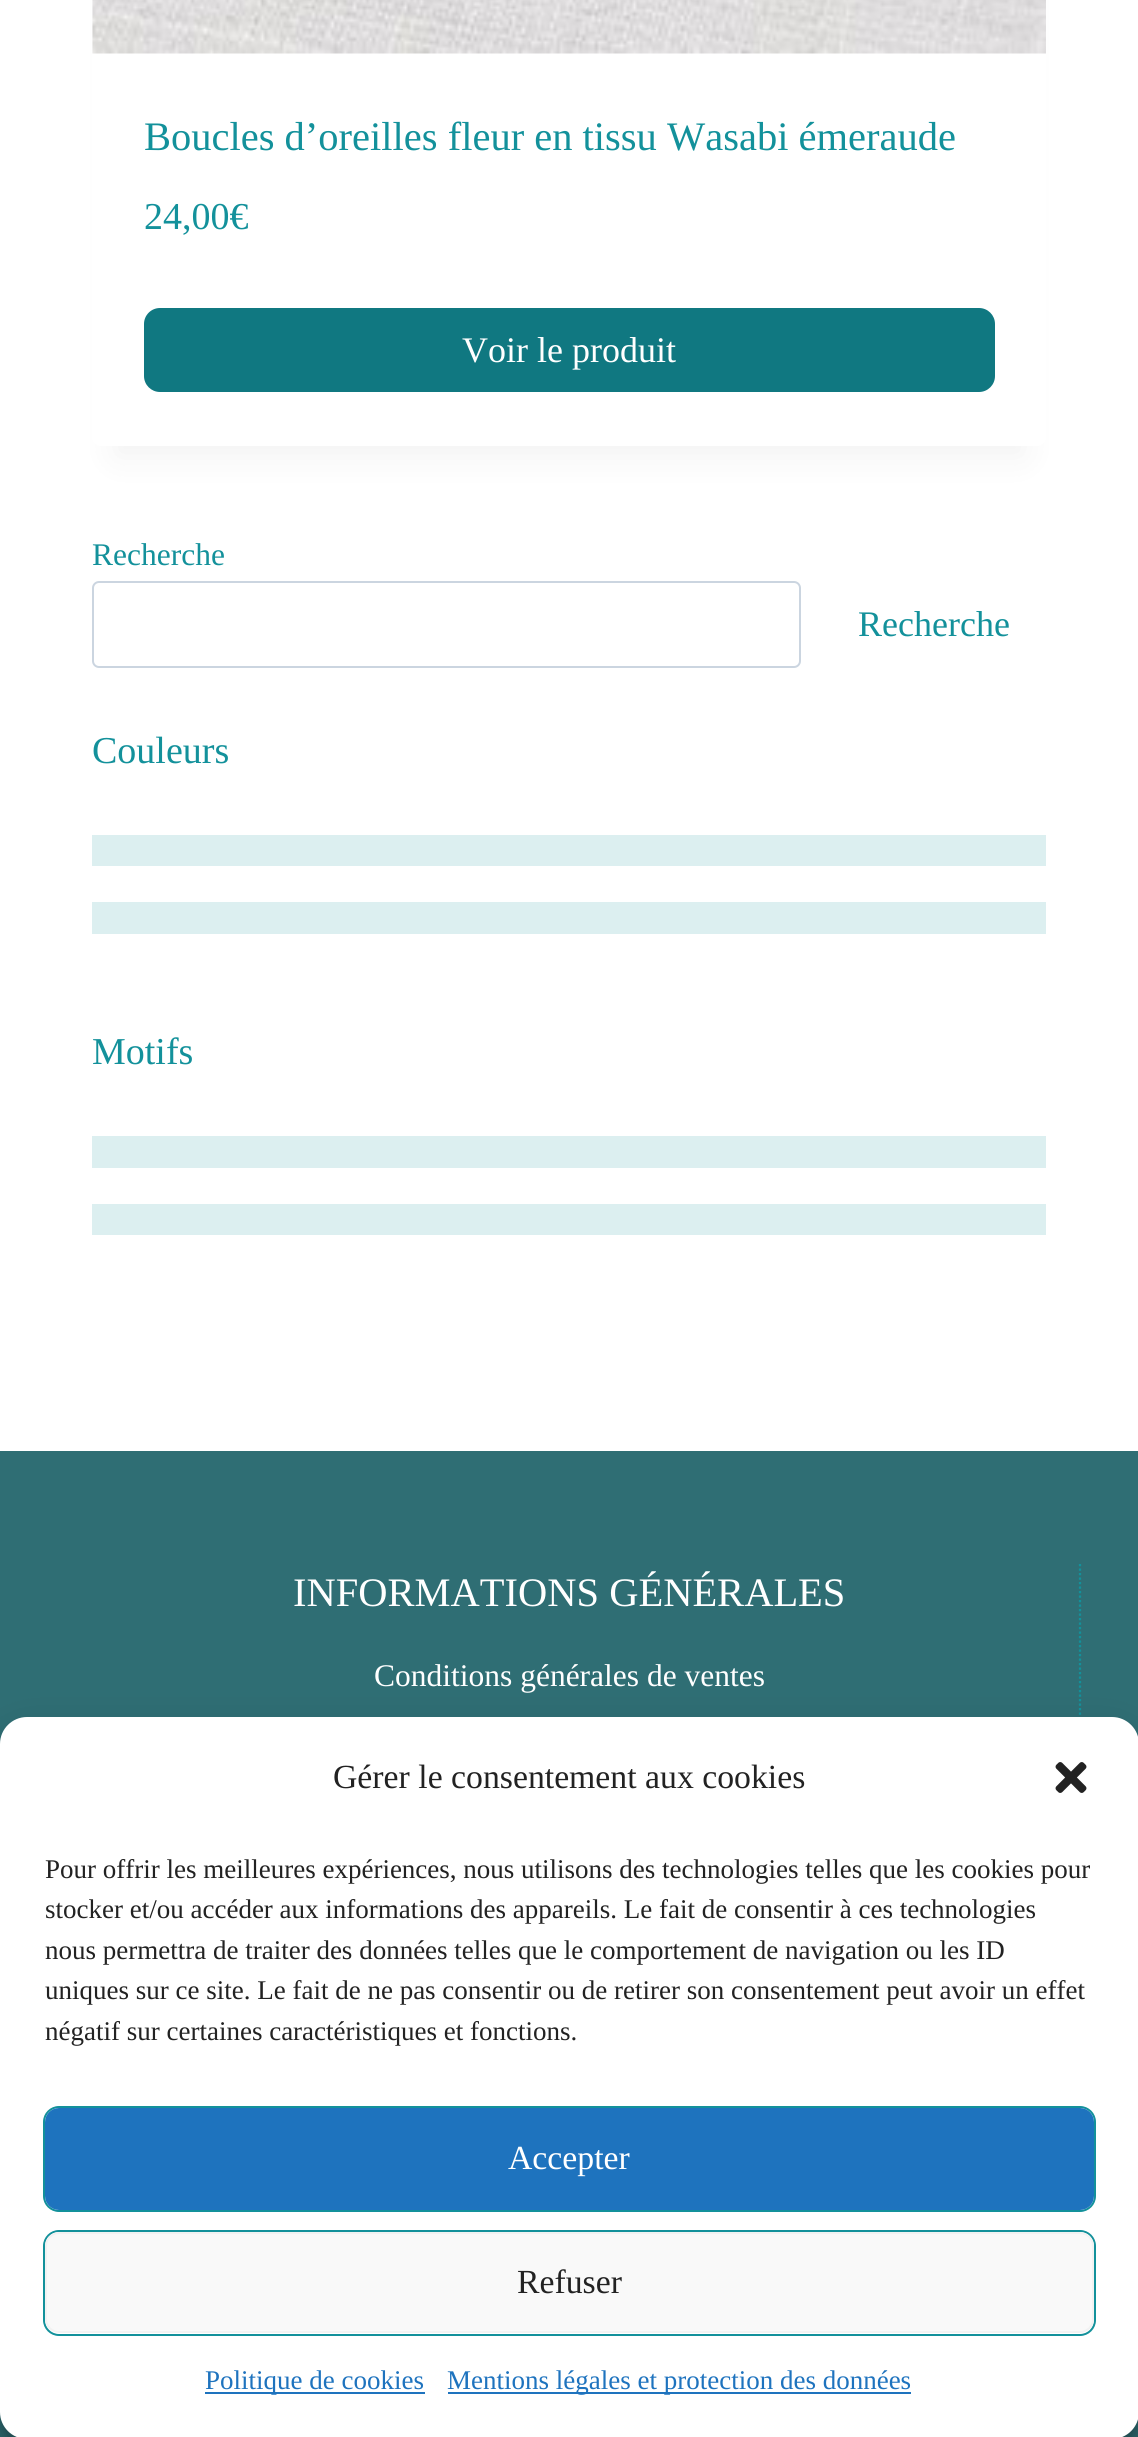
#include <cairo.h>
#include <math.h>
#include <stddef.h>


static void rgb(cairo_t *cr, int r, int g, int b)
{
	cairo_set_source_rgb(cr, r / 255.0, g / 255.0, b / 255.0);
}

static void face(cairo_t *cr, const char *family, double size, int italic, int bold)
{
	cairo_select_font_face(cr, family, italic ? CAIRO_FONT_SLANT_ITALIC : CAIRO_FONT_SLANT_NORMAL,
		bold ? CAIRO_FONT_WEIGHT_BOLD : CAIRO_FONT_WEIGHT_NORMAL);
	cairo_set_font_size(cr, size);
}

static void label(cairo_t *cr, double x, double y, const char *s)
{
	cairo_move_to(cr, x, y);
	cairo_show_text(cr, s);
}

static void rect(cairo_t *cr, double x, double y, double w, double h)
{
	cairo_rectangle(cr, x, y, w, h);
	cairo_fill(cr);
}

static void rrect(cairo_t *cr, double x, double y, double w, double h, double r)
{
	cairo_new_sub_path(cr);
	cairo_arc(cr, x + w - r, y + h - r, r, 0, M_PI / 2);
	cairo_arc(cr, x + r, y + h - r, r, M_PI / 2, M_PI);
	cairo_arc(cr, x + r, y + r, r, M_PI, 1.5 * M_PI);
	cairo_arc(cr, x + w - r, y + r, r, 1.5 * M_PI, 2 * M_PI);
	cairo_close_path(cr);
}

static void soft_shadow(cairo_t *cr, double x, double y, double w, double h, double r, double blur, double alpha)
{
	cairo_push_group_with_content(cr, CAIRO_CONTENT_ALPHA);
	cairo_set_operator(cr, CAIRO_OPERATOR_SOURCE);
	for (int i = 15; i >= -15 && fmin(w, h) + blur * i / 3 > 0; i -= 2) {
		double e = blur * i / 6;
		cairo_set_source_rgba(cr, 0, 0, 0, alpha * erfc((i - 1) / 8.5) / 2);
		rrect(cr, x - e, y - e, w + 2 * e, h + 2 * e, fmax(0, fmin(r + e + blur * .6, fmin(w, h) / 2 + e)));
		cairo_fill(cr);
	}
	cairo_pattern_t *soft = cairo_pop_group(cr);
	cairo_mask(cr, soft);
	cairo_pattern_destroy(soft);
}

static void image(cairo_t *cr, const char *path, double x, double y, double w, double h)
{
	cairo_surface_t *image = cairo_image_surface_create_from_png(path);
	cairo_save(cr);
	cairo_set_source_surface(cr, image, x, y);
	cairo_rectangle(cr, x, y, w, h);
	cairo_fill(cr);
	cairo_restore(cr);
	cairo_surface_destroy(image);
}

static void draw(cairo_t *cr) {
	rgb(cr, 255, 255, 255);
	cairo_paint(cr);
	rgb(cr, 0, 0, 0);
	soft_shadow(cr, 115, -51, 909, 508, 0, 17, 0.05);
	rgb(cr, 255, 255, 255);
	rrect(cr, 92, -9, 954, 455, 9);
	cairo_fill(cr);
	image(cr, "image0.png", 92, 0, 954, 54);
	face(cr, "Liberation Serif", 40.5, 0, 0);
	rgb(cr, 19, 145, 155);
	label(cr, 144, 150, "Boucles d’oreilles fleur en tissu Wasabi émeraude");
	face(cr, "Liberation Serif", 38, 0, 0);
	label(cr, 144, 229, "24,00€");
	rgb(cr, 16, 120, 129);
	rrect(cr, 144, 308, 851, 84, 16);
	cairo_fill(cr);
	face(cr, "Liberation Serif", 36, 0, 0);
	rgb(cr, 255, 255, 255);
	label(cr, 462, 362, "Voir le produit");
	face(cr, "Liberation Serif", 31.5, 0, 0);
	rgb(cr, 19, 145, 155);
	label(cr, 92, 565, "Recherche");
	rrect(cr, 93, 582, 707, 85, 6);
	rgb(cr, 203, 213, 224);
	cairo_stroke(cr);
	face(cr, "Liberation Serif", 36, 0, 0);
	rgb(cr, 19, 145, 155);
	label(cr, 858, 636, "Recherche");
	face(cr, "Liberation Serif", 38, 0, 0);
	label(cr, 92, 763, "Couleurs");
	rgb(cr, 220, 239, 240);
	rect(cr, 92, 835, 954, 31);
	rect(cr, 92, 902, 954, 32);
	rgb(cr, 19, 145, 155);
	label(cr, 92, 1064, "Motifs");
	rgb(cr, 220, 239, 240);
	rect(cr, 92, 1136, 954, 32);
	rect(cr, 92, 1204, 954, 31);
	rgb(cr, 47, 110, 116);
	rect(cr, 0, 1451, 1138, 986);
	face(cr, "Liberation Serif", 40.5, 0, 0);
	rgb(cr, 255, 255, 255);
	label(cr, 293, 1606, "INFORMATIONS GÉNÉRALES");
	face(cr, "Liberation Serif", 31.5, 0, 0);
	label(cr, 374, 1686, "Conditions générales de ventes");
	cairo_new_path(cr);
	cairo_move_to(cr, 1080, 1564);
	cairo_line_to(cr, 1080, 1901);
	rgb(cr, 19, 145, 155);
	cairo_set_line_width(cr, 2.2);
	cairo_set_dash(cr, (double[]){2.25, 2.25}, 2, 0);
	cairo_stroke(cr);
	rgb(cr, 0, 0, 0);
	soft_shadow(cr, 0, 1730, 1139, 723, 27, 7, 0.23);
	soft_shadow(cr, 0, 1739, 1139, 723, 27, 22.5, 0.19);
	rgb(cr, 255, 255, 255);
	rrect(cr, 0, 1717, 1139, 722, 27);
	cairo_fill(cr);
	face(cr, "Liberation Serif", 33.75, 0, 0);
	rgb(cr, 34, 34, 34);
	label(cr, 333, 1788, "Gérer le consentement aux cookies");
	image(cr, "image1.png", 1055, 1762, 32, 31);
	face(cr, "Liberation Serif", 27, 0, 0);
	label(cr, 45, 1878, "Pour offrir les meilleures expériences, nous utilisons des technologies telles que les cookies pour");
	label(cr, 45, 1918, "stocker et/ou accéder aux informations des appareils. Le fait de consentir à ces technologies");
	label(cr, 45, 1959, "nous permettra de traiter des données telles que le comportement de navigation ou les ID");
	label(cr, 45, 1999, "uniques sur ce site. Le fait de ne pas consentir ou de retirer son consentement peut avoir un effet");
	label(cr, 45, 2040, "négatif sur certaines caractéristiques et fonctions.");
	rrect(cr, 44, 2107, 1051, 104, 15);
	rgb(cr, 19, 145, 155);
	cairo_set_line_width(cr, 2);
	cairo_set_dash(cr, NULL, 0, 0);
	cairo_stroke(cr);
	rgb(cr, 30, 115, 190);
	rrect(cr, 46, 2109, 1047, 100, 13);
	cairo_fill_preserve(cr);
	cairo_stroke(cr);
	face(cr, "Liberation Serif", 33.75, 0, 0);
	rgb(cr, 255, 255, 255);
	label(cr, 508, 2169, "Accepter");
	rrect(cr, 44, 2231, 1051, 104, 15);
	rgb(cr, 19, 145, 155);
	cairo_stroke(cr);
	rgb(cr, 249, 249, 249);
	rrect(cr, 46, 2233, 1047, 99, 13);
	cairo_fill_preserve(cr);
	rgb(cr, 242, 242, 242);
	cairo_stroke(cr);
	rgb(cr, 34, 34, 34);
	label(cr, 517, 2293, "Refuser");
	rgb(cr, 30, 115, 190);
	rect(cr, 205, 2392, 220, 2);
	face(cr, "Liberation Serif", 27, 0, 0);
	label(cr, 205, 2389, "Politique de cookies");
	rect(cr, 448, 2392, 463, 2);
	label(cr, 447, 2389, "Mentions légales et protection des données");
}

int main(void) {
	cairo_surface_t *surface = cairo_image_surface_create(CAIRO_FORMAT_RGB24, 1138, 2437);
	cairo_t *cr = cairo_create(surface);
	cairo_font_options_t *options = cairo_font_options_create();
	cairo_font_options_set_hint_metrics(options, CAIRO_HINT_METRICS_OFF);
	cairo_font_options_set_hint_style(options, CAIRO_HINT_STYLE_NONE);
	cairo_set_font_options(cr, options);
	cairo_set_miter_limit(cr, 4);
	draw(cr);
	cairo_surface_write_to_png(surface, "render.png");
	cairo_font_options_destroy(options);
	cairo_destroy(cr);
	cairo_surface_destroy(surface);
	return 0;
}
